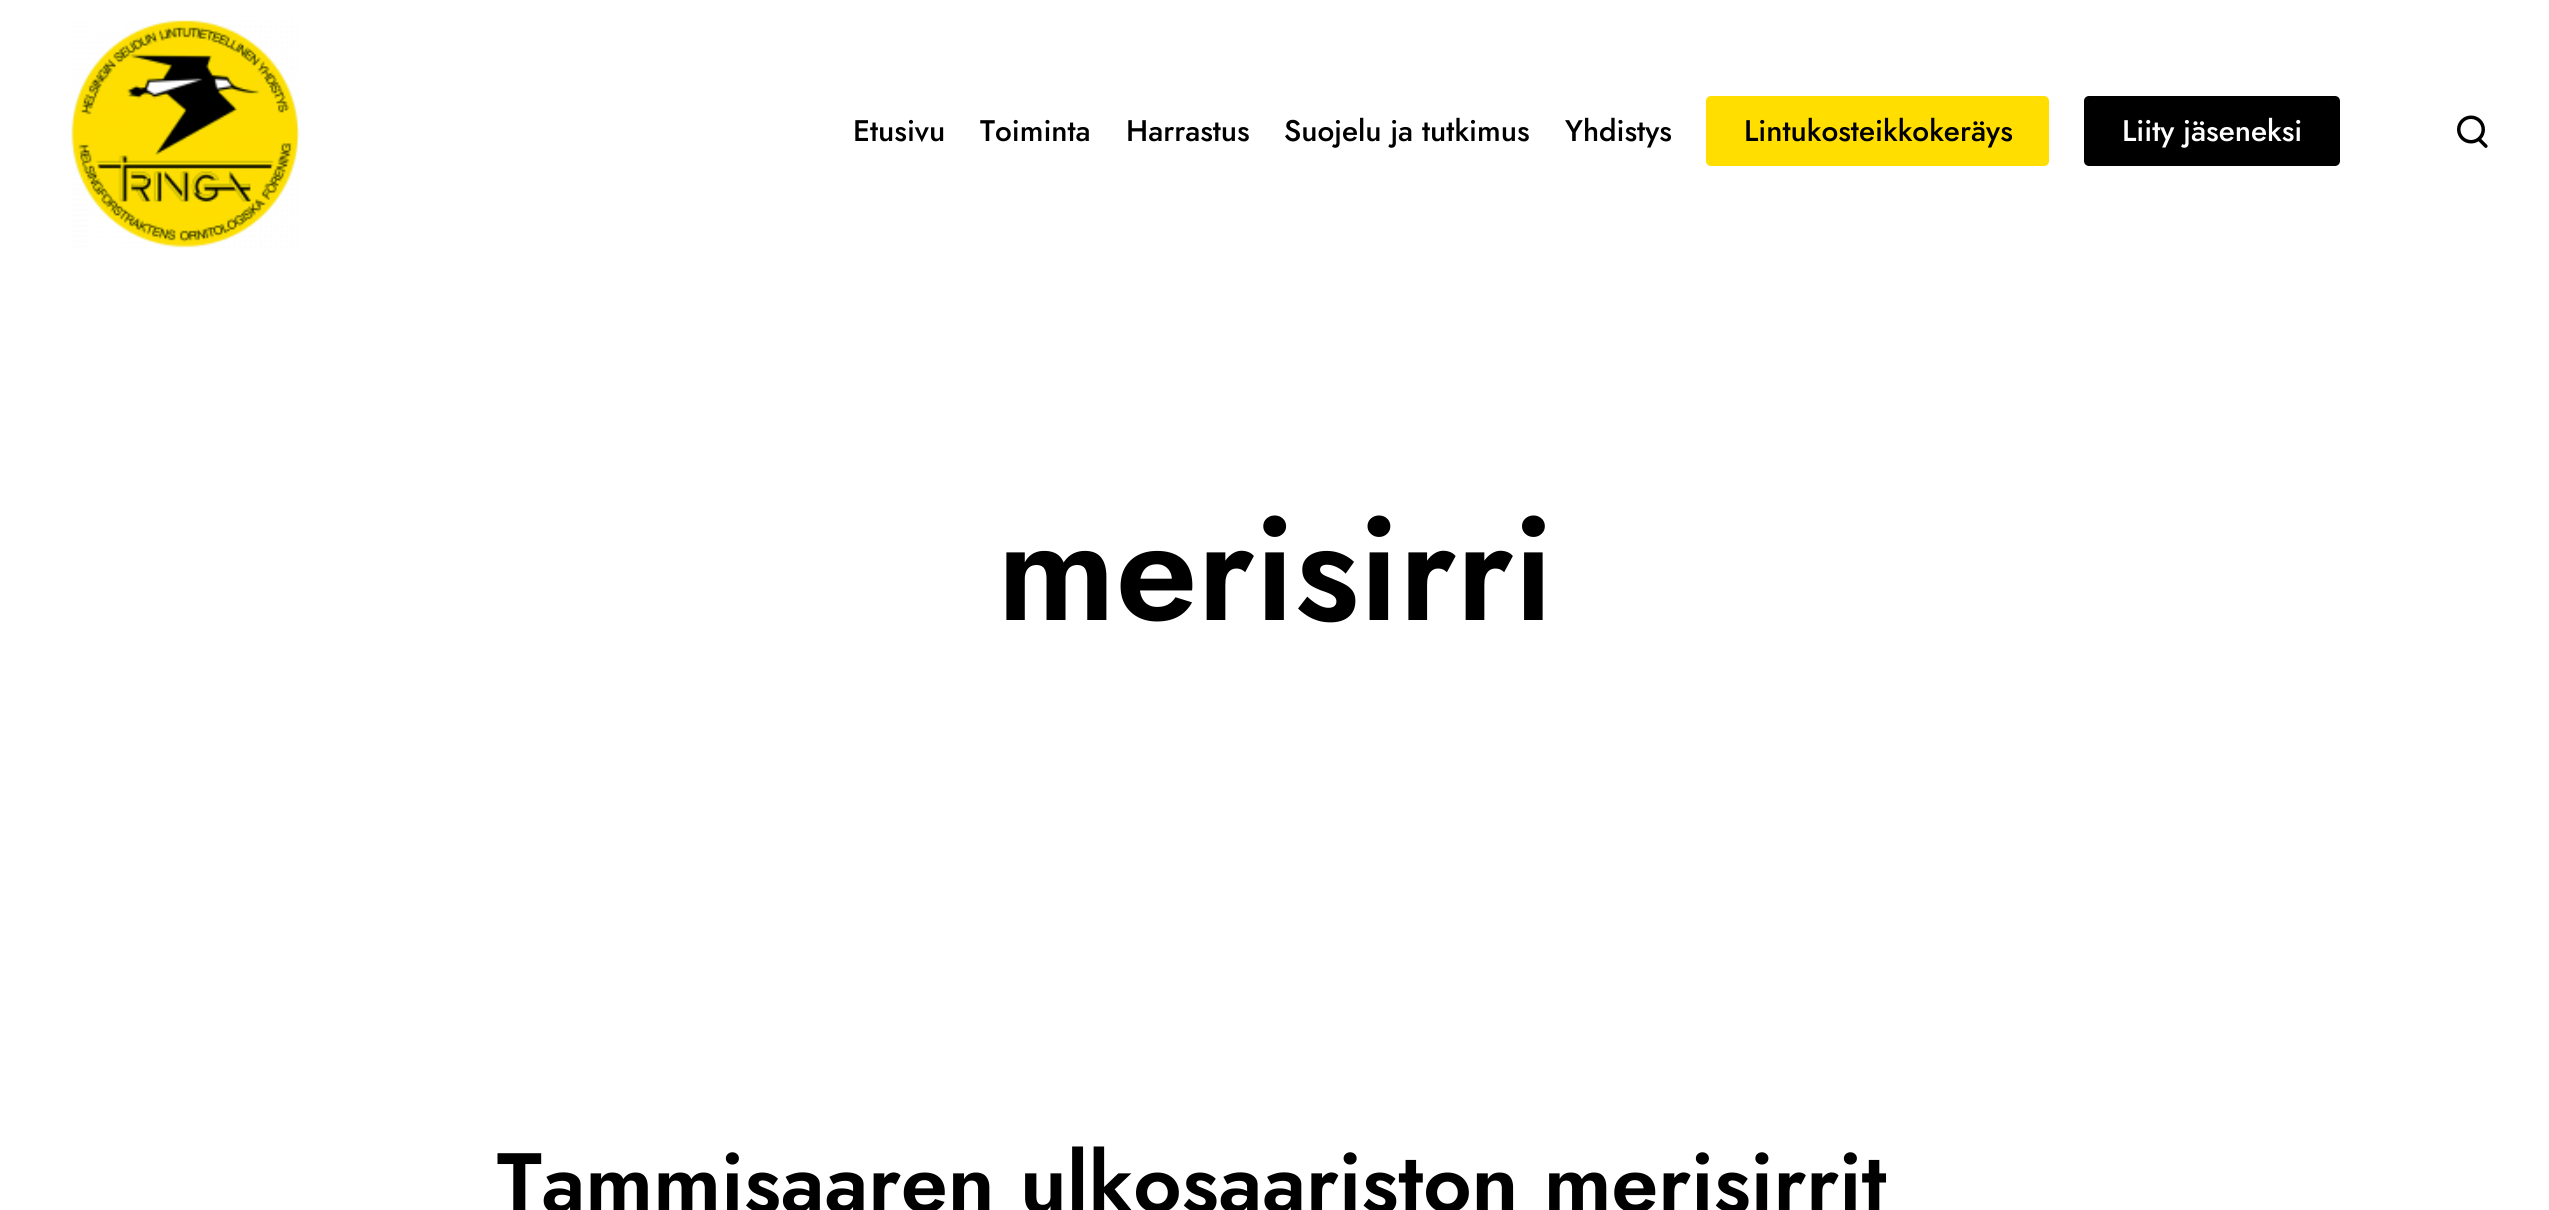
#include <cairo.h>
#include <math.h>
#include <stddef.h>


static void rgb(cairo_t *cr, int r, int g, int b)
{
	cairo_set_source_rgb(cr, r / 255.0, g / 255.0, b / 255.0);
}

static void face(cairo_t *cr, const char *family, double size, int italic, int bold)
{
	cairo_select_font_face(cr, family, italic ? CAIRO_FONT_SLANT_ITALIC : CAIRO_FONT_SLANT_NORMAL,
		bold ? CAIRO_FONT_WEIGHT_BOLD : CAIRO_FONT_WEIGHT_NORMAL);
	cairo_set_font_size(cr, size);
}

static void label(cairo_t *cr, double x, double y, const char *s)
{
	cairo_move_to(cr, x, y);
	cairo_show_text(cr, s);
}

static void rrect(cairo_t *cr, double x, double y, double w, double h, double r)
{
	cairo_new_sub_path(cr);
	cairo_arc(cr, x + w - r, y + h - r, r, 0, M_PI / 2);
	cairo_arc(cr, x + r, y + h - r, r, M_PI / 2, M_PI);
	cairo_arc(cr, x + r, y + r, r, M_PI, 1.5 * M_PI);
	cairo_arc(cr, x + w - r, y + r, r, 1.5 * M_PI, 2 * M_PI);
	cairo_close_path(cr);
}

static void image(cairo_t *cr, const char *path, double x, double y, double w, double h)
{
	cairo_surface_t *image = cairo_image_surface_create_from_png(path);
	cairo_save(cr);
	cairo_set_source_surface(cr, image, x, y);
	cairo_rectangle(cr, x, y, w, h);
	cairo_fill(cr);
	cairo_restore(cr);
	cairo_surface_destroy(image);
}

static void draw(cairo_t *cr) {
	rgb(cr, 255, 255, 255);
	cairo_paint(cr);
	image(cr, "image0.png", 71, 20, 229, 228);
	face(cr, "Jost Medium", 29.75, 0, 0);
	rgb(cr, 0, 0, 0);
	label(cr, 853, 141, "Etusivu");
	label(cr, 980, 141, "Toiminta");
	label(cr, 1126, 141, "Harrastus");
	label(cr, 1284, 141, "Suojelu ja tutkimus");
	label(cr, 1565, 141, "Yhdistys");
	rgb(cr, 255, 222, 0);
	rrect(cr, 1706, 96, 343, 70, 5);
	cairo_fill(cr);
	rgb(cr, 0, 0, 0);
	label(cr, 1744, 141, "Lintukosteikkokeräys");
	rrect(cr, 2084, 96, 256, 70, 5);
	cairo_fill(cr);
	rgb(cr, 255, 255, 255);
	label(cr, 2122, 141, "Liity jäseneksi");
	image(cr, "image1.png", 2457, 115, 31, 33);
	face(cr, "Jost SemiBold", 147, 0, 0);
	rgb(cr, 0, 0, 0);
	label(cr, 997, 620, "merisirri");
	face(cr, "Jost SemiBold", 84, 0, 0);
	label(cr, 497, 1212, "Tammisaaren ulkosaariston merisirrit");
}

int main(void) {
	cairo_surface_t *surface = cairo_image_surface_create(CAIRO_FORMAT_RGB24, 2549, 1210);
	cairo_t *cr = cairo_create(surface);
	cairo_font_options_t *options = cairo_font_options_create();
	cairo_font_options_set_hint_metrics(options, CAIRO_HINT_METRICS_OFF);
	cairo_font_options_set_hint_style(options, CAIRO_HINT_STYLE_NONE);
	cairo_set_font_options(cr, options);
	cairo_set_miter_limit(cr, 4);
	draw(cr);
	cairo_surface_write_to_png(surface, "render.png");
	cairo_font_options_destroy(options);
	cairo_destroy(cr);
	cairo_surface_destroy(surface);
	return 0;
}
